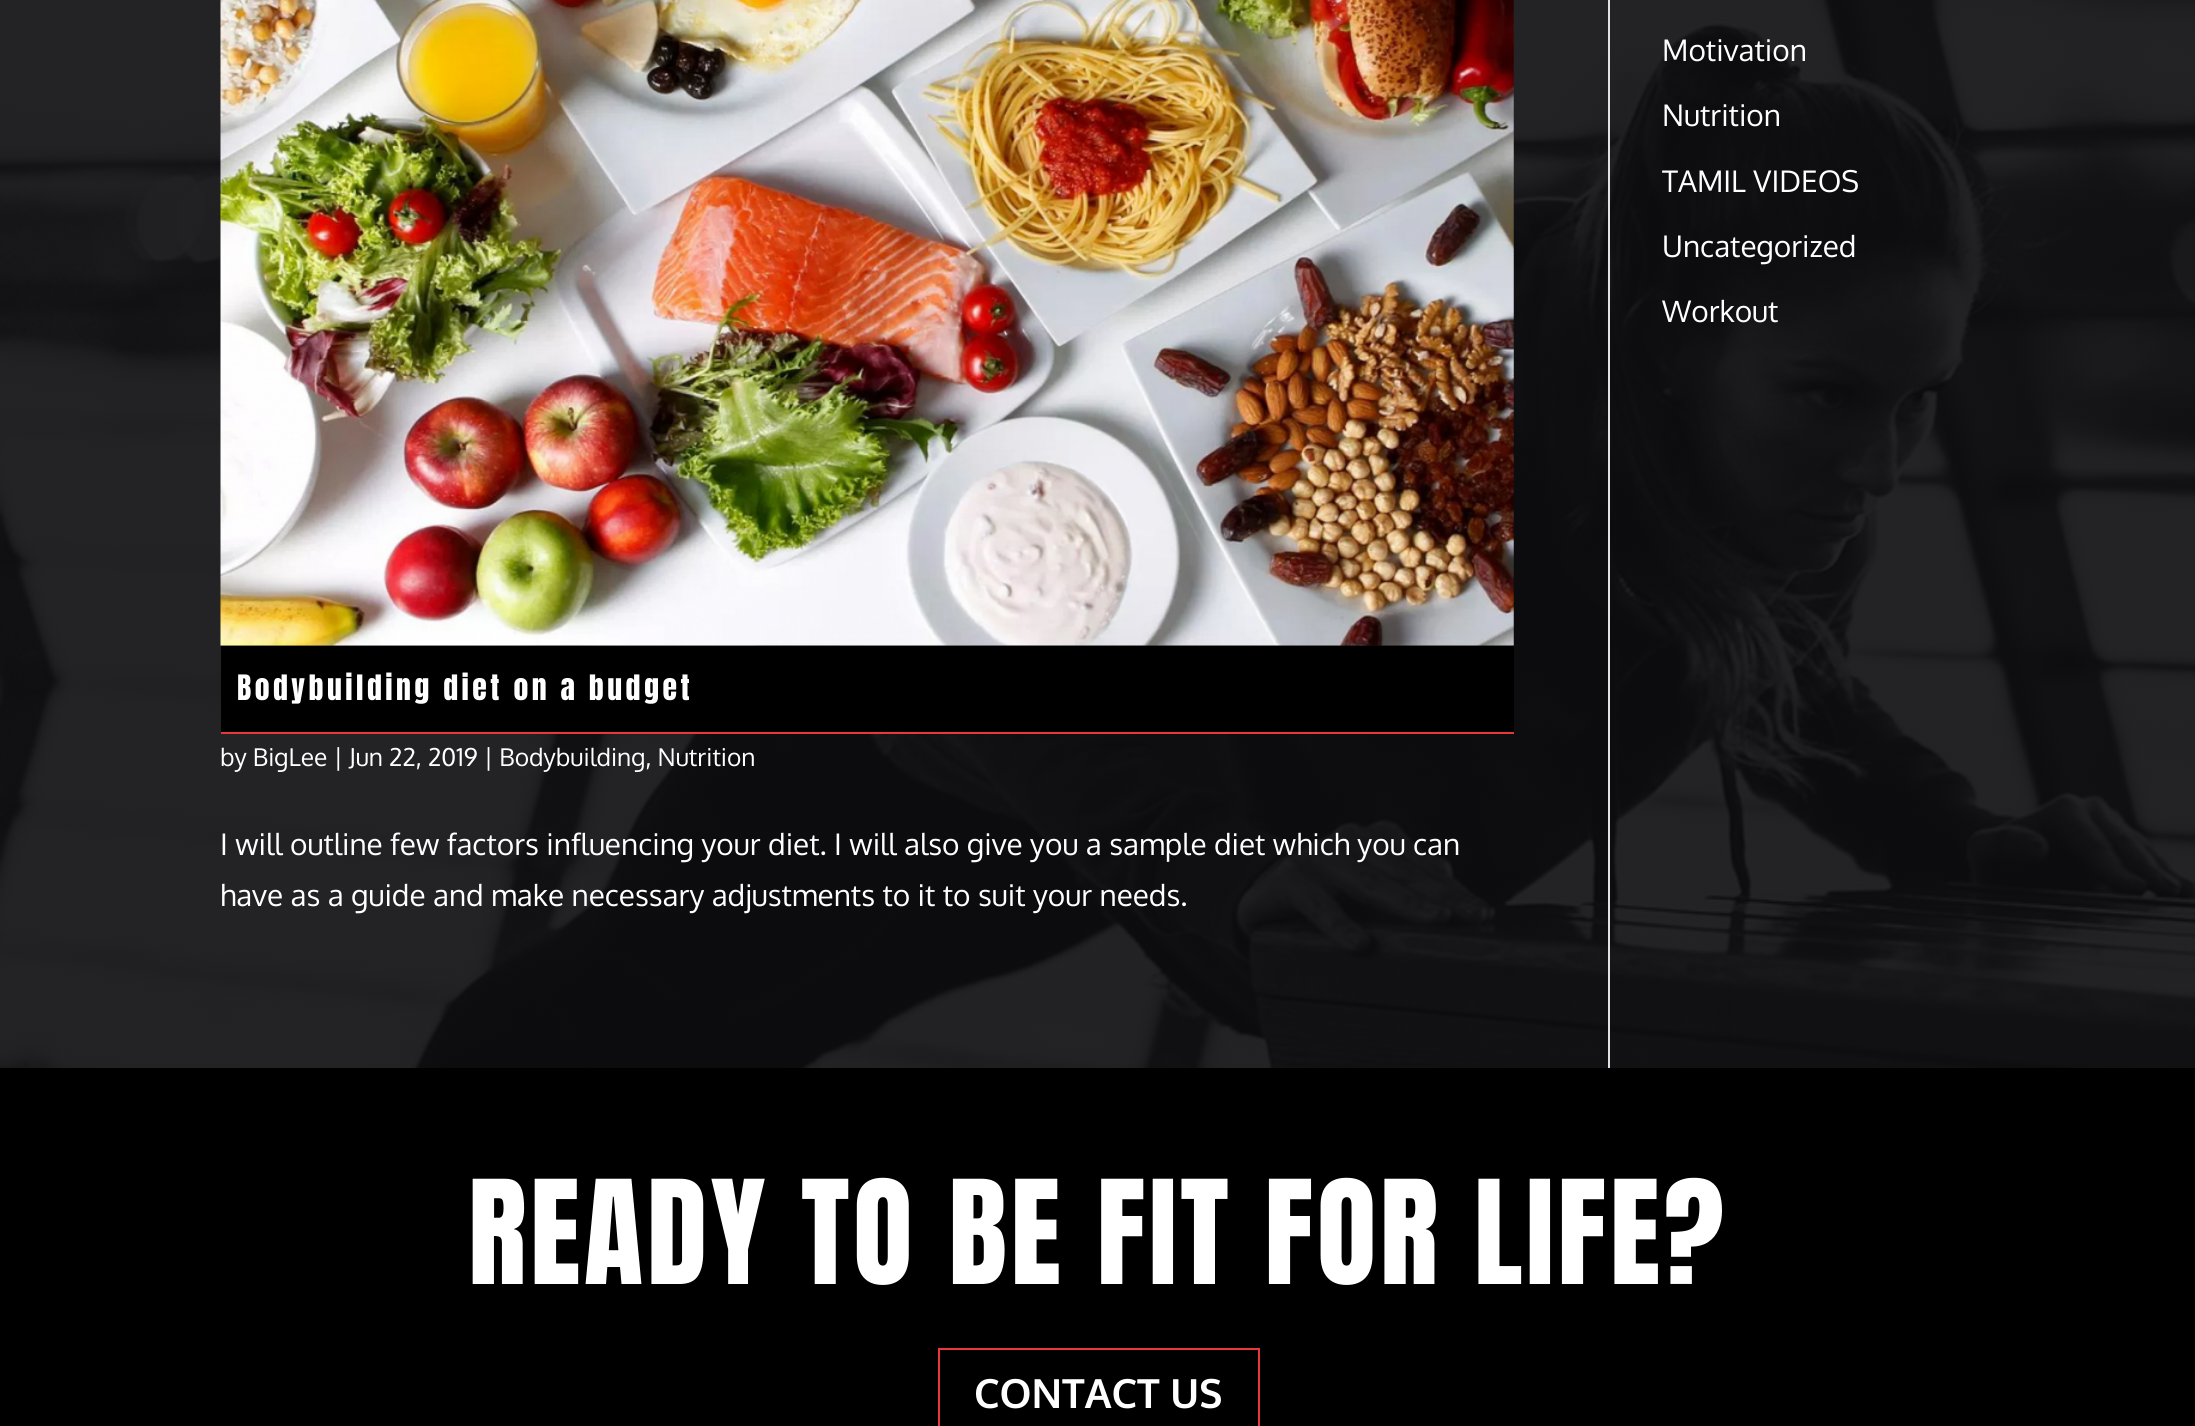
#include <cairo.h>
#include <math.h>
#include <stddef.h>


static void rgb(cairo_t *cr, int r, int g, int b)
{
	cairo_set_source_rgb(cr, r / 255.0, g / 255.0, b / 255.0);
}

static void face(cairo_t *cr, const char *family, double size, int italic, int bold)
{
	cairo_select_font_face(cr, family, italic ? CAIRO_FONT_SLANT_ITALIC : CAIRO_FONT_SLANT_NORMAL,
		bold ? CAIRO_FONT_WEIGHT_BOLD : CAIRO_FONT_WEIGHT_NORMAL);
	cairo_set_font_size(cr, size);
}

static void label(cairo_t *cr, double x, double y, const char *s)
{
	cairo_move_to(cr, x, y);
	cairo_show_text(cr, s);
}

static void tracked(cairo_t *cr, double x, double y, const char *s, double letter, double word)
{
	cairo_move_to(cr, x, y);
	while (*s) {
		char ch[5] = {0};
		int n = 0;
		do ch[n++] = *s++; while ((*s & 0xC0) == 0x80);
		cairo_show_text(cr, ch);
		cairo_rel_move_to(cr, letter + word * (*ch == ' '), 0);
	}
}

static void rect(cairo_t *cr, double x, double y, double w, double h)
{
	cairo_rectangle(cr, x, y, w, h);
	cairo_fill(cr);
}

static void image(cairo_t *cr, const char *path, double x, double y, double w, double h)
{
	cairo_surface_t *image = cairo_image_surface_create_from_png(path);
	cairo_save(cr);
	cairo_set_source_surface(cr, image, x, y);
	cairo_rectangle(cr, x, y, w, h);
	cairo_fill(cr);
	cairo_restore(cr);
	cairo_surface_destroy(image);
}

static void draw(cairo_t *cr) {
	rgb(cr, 255, 255, 255);
	cairo_paint(cr);
	image(cr, "image0.png", 0, 0, 2195, 1068);
	rgb(cr, 226, 226, 226);
	rect(cr, 1608, 0, 2, 1068);
	face(cr, "Oxygen", 29.75, 0, 0);
	rgb(cr, 255, 255, 255);
	label(cr, 1662, 61, "Motivation");
	label(cr, 1662, 126, "Nutrition");
	label(cr, 1662, 192, "TAMIL VIDEOS");
	label(cr, 1662, 257, "Uncategorized");
	label(cr, 1662, 322, "Workout");
	image(cr, "image1.png", 220, 0, 1294, 646);
	rgb(cr, 0, 0, 0);
	rect(cr, 221, 646, 1293, 86);
	rgb(cr, 232, 56, 56);
	rect(cr, 221, 732, 1293, 2);
	face(cr, "Anton", 29.75, 0, 0);
	rgb(cr, 255, 255, 255);
	tracked(cr, 237, 700, "Bodybuilding diet on a budget", 3.5, 0);
	face(cr, "Oxygen", 24.5, 0, 0);
	label(cr, 220, 766, "by BigLee | Jun 22, 2019 | Bodybuilding, Nutrition");
	face(cr, "Oxygen", 29.75, 0, 0);
	label(cr, 220, 855, "I will outline few factors influencing your diet. I will also give you a sample diet which you can");
	label(cr, 220, 906, "have as a guide and make necessary adjustments to it to suit your needs.");
	rgb(cr, 0, 0, 0);
	rect(cr, 0, 1068, 2195, 358);
	face(cr, "Anton", 122.5, 0, 0);
	rgb(cr, 255, 255, 255);
	tracked(cr, 468, 1284, "READY TO BE FIT FOR LIFE?", 3.5, 0);
	cairo_rectangle(cr, 939, 1349, 320, 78);
	rgb(cr, 232, 56, 56);
	cairo_stroke(cr);
	face(cr, "Oxygen", 40.25, 0, 1);
	rgb(cr, 255, 255, 255);
	label(cr, 974, 1408, "CONTACT US");
}

int main(void) {
	cairo_surface_t *surface = cairo_image_surface_create(CAIRO_FORMAT_RGB24, 2195, 1426);
	cairo_t *cr = cairo_create(surface);
	cairo_font_options_t *options = cairo_font_options_create();
	cairo_font_options_set_hint_metrics(options, CAIRO_HINT_METRICS_OFF);
	cairo_font_options_set_hint_style(options, CAIRO_HINT_STYLE_NONE);
	cairo_set_font_options(cr, options);
	cairo_set_miter_limit(cr, 4);
	draw(cr);
	cairo_surface_write_to_png(surface, "render.png");
	cairo_font_options_destroy(options);
	cairo_destroy(cr);
	cairo_surface_destroy(surface);
	return 0;
}
